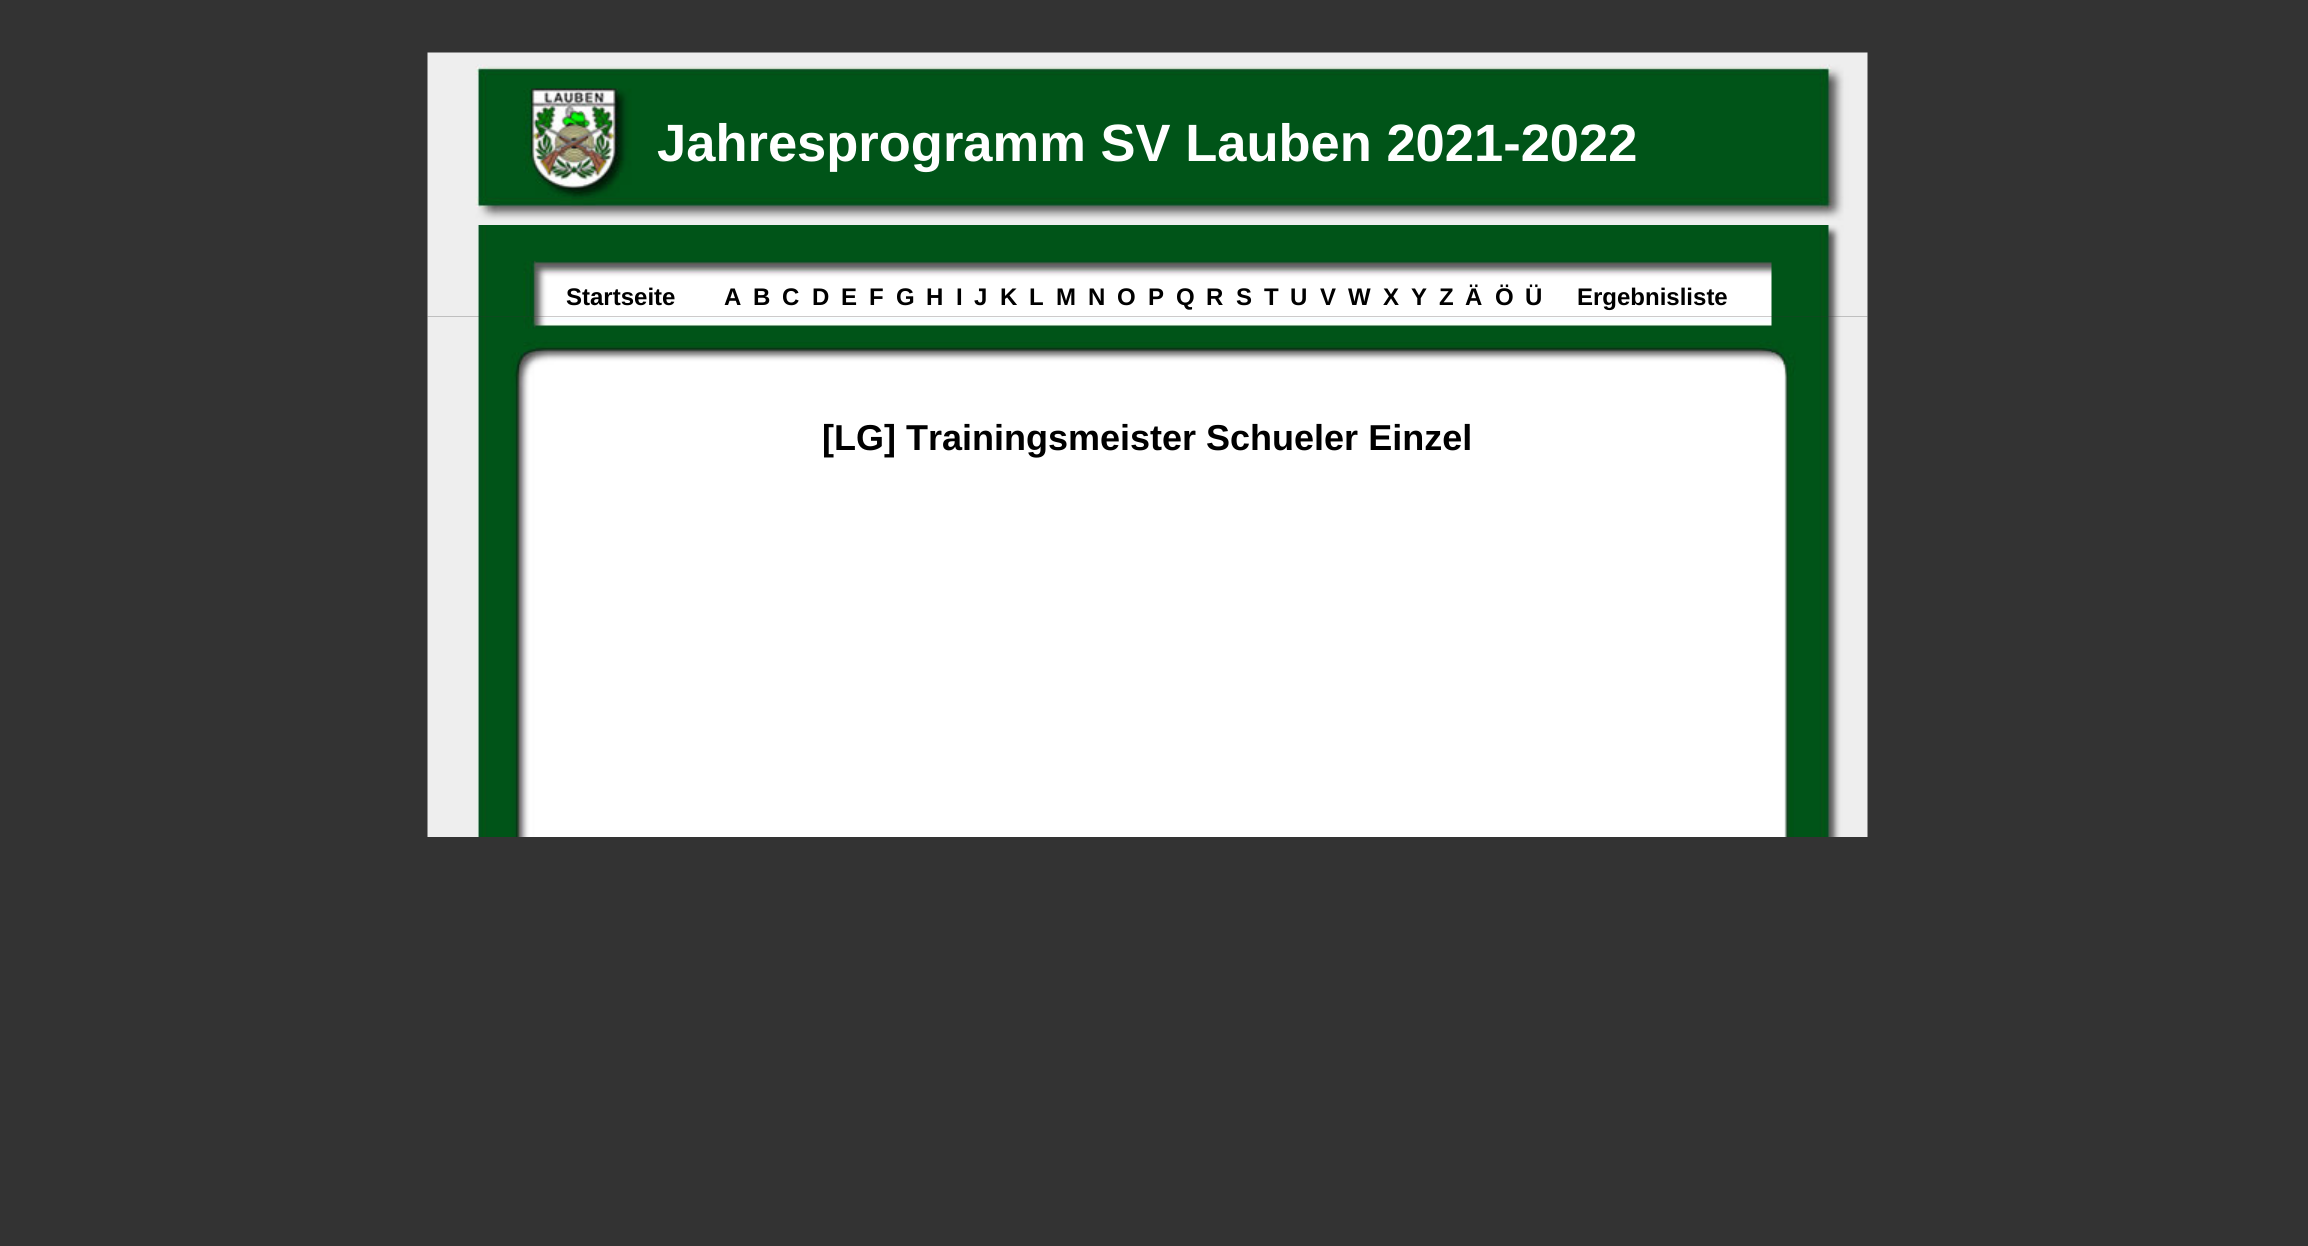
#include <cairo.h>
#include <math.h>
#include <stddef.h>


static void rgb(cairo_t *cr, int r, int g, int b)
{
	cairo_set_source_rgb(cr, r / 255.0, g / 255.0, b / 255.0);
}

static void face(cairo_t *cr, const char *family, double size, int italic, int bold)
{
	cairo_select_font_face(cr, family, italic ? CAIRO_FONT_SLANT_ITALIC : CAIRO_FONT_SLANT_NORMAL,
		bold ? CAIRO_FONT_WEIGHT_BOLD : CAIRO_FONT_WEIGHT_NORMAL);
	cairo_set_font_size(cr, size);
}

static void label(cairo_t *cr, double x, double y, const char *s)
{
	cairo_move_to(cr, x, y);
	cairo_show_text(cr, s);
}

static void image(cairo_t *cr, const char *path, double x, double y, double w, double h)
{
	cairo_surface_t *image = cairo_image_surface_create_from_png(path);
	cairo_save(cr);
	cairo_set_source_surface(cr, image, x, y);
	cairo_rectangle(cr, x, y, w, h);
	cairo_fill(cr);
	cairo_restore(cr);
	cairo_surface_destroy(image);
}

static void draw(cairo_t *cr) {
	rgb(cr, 51, 51, 51);
	cairo_paint(cr);
	image(cr, "image0.png", 427, 52, 1441, 173);
	face(cr, "Liberation Sans", 52.5, 0, 1);
	rgb(cr, 255, 255, 255);
	label(cr, 657, 161, "Jahresprogramm SV Lauben 2021-2022");
	image(cr, "image1.png", 427, 225, 1441, 54);
	image(cr, "image2.png", 427, 279, 1441, 38);
	face(cr, "Liberation Sans", 24, 0, 1);
	rgb(cr, 0, 0, 0);
	label(cr, 566, 305, "Startseite");
	label(cr, 724, 305, "A");
	label(cr, 753, 305, "B");
	label(cr, 782, 305, "C");
	label(cr, 812, 305, "D");
	label(cr, 841, 305, "E");
	label(cr, 869, 305, "F");
	label(cr, 896, 305, "G");
	label(cr, 926, 305, "H");
	label(cr, 956, 305, "I");
	label(cr, 974, 305, "J");
	label(cr, 1000, 305, "K");
	label(cr, 1029, 305, "L");
	label(cr, 1056, 305, "M");
	label(cr, 1088, 305, "N");
	label(cr, 1117, 305, "O");
	label(cr, 1148, 305, "P");
	label(cr, 1176, 305, "Q");
	label(cr, 1206, 305, "R");
	label(cr, 1236, 305, "S");
	label(cr, 1264, 305, "T");
	label(cr, 1290, 305, "U");
	label(cr, 1320, 305, "V");
	label(cr, 1348, 305, "W");
	label(cr, 1383, 305, "X");
	label(cr, 1411, 305, "Y");
	label(cr, 1439, 305, "Z");
	label(cr, 1465, 305, "Ä");
	label(cr, 1495, 305, "Ö");
	label(cr, 1525, 305, "Ü");
	label(cr, 1577, 305, "Ergebnisliste");
	image(cr, "image3.png", 427, 316, 1441, 71);
	image(cr, "image4.png", 427, 387, 1441, 450);
	face(cr, "Liberation Sans", 36, 0, 1);
	label(cr, 822, 450, "[LG] Trainingsmeister Schueler Einzel");
}

int main(void) {
	cairo_surface_t *surface = cairo_image_surface_create(CAIRO_FORMAT_RGB24, 2308, 1246);
	cairo_t *cr = cairo_create(surface);
	cairo_font_options_t *options = cairo_font_options_create();
	cairo_font_options_set_hint_metrics(options, CAIRO_HINT_METRICS_OFF);
	cairo_font_options_set_hint_style(options, CAIRO_HINT_STYLE_NONE);
	cairo_set_font_options(cr, options);
	cairo_set_miter_limit(cr, 4);
	draw(cr);
	cairo_surface_write_to_png(surface, "render.png");
	cairo_font_options_destroy(options);
	cairo_destroy(cr);
	cairo_surface_destroy(surface);
	return 0;
}
